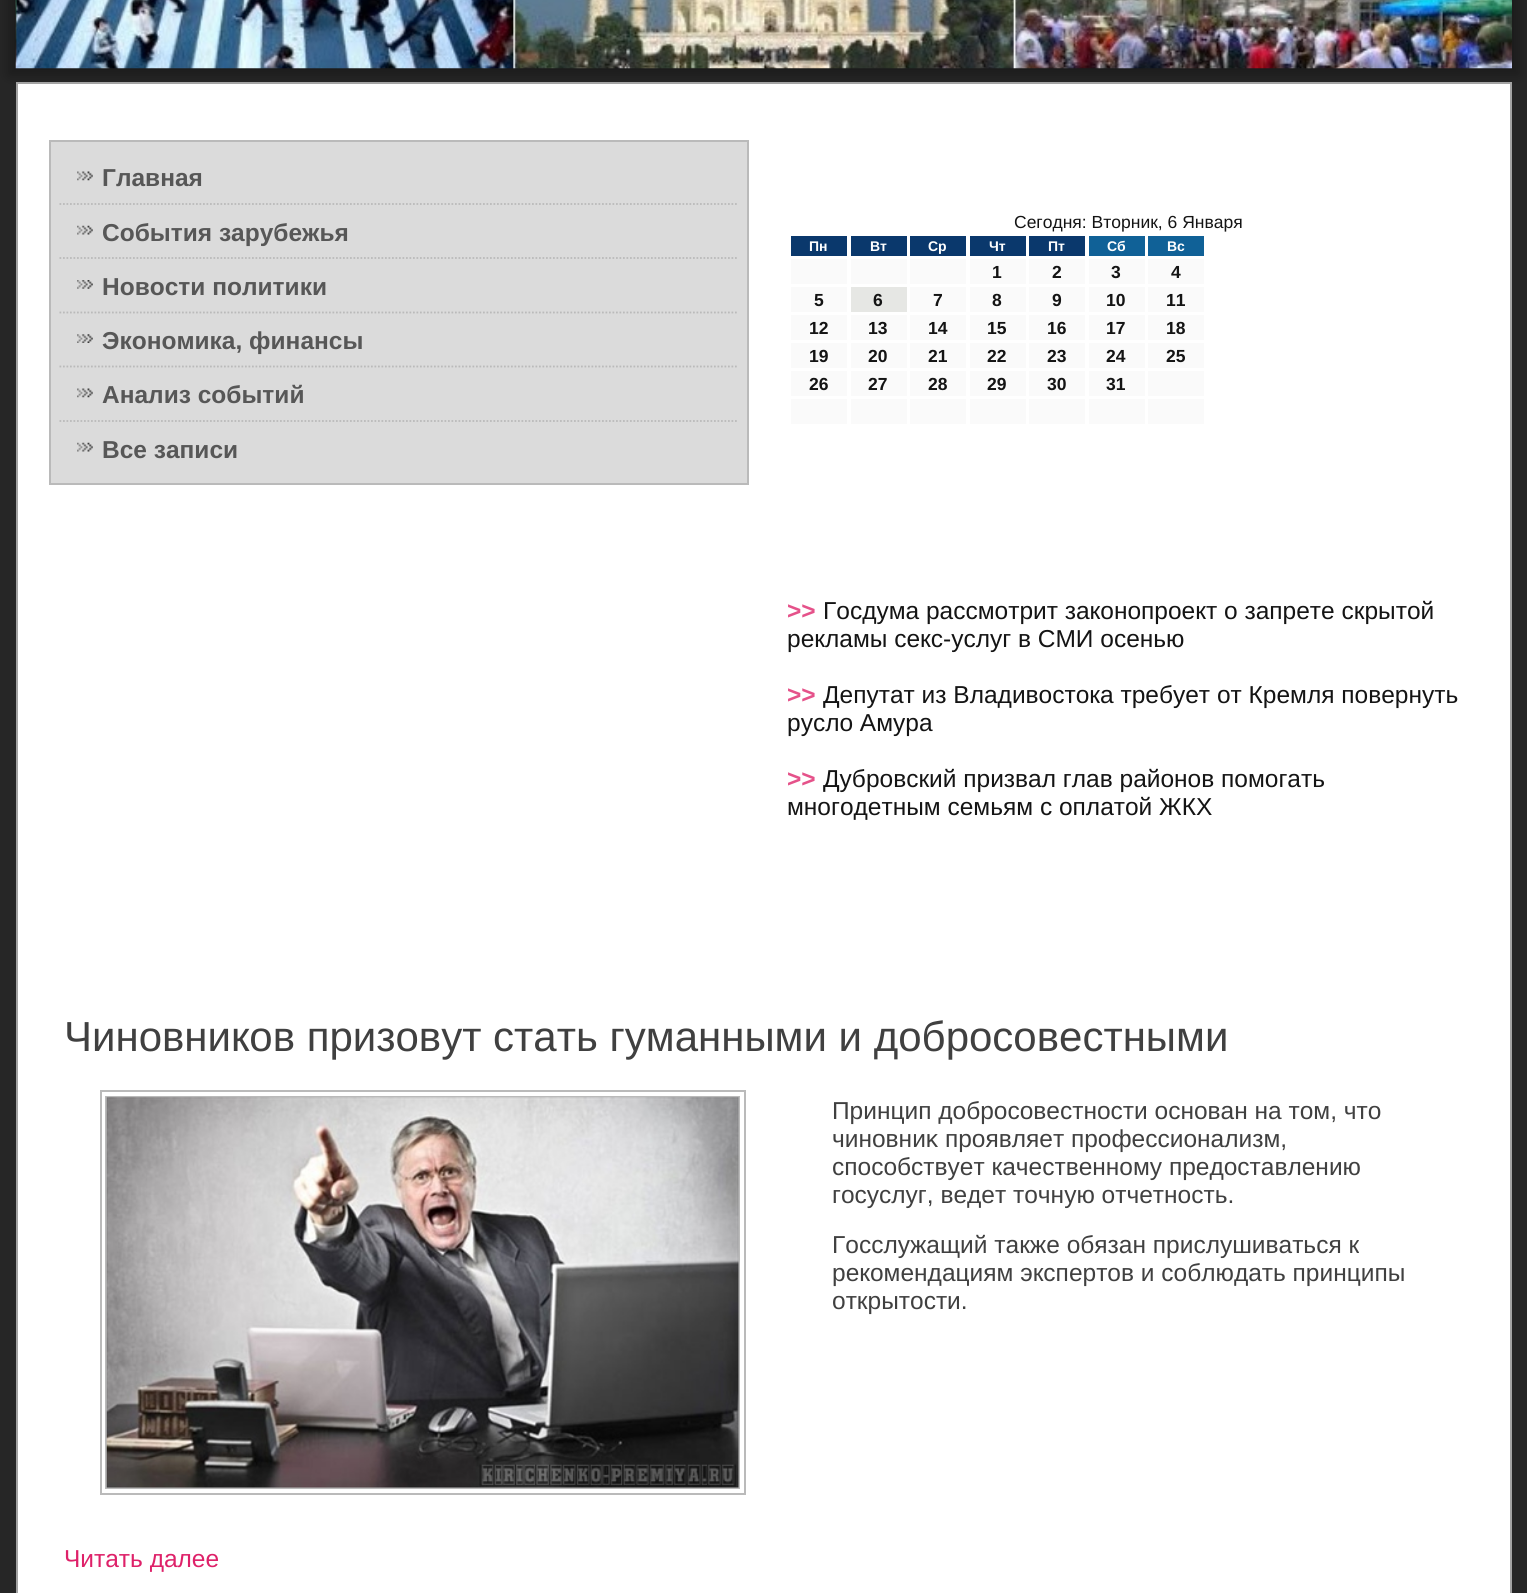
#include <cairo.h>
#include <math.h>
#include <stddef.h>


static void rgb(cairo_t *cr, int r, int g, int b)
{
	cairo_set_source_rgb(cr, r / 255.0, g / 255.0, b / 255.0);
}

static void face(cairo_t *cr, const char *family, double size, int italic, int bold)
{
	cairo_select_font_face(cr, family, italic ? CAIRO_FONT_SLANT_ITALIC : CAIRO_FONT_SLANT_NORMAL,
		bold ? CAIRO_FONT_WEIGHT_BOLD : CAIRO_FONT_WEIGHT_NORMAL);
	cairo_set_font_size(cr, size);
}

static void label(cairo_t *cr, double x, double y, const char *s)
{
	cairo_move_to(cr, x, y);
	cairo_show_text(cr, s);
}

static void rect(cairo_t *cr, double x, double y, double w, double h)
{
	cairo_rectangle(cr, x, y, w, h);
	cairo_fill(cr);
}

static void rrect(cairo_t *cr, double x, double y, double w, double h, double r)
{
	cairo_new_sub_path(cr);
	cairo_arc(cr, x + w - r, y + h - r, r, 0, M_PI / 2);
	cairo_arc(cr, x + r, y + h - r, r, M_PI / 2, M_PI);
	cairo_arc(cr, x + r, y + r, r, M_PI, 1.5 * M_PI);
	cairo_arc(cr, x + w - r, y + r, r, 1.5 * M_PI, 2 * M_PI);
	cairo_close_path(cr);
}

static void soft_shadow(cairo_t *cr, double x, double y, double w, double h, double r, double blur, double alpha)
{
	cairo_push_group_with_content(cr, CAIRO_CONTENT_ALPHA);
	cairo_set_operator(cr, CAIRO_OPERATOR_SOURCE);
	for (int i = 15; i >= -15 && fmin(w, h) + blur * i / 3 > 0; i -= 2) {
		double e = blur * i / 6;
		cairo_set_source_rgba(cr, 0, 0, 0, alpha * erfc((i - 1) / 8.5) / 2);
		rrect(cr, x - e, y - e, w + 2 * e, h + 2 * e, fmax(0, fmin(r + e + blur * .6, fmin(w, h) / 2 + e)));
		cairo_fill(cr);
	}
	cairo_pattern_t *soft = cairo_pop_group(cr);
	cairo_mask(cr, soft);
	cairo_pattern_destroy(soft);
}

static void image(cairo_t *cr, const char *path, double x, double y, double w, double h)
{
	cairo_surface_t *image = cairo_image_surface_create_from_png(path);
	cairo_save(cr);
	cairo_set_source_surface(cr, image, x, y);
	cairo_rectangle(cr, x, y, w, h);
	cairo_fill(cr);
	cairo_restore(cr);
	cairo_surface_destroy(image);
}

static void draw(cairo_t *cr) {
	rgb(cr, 38, 38, 38);
	cairo_paint(cr);
	rgb(cr, 0, 0, 0);
	soft_shadow(cr, 9, -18, 1510, 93, 0, 6, 0.3);
	image(cr, "image0.png", 15, 0, 1497, 69);
	rgb(cr, 255, 255, 255);
	cairo_rectangle(cr, 17, 83, 1494, 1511);
	cairo_fill_preserve(cr);
	rgb(cr, 163, 163, 163);
	cairo_stroke(cr);
	rgb(cr, 219, 219, 219);
	cairo_rectangle(cr, 50, 141, 698, 343);
	cairo_fill_preserve(cr);
	rgb(cr, 186, 186, 186);
	cairo_stroke(cr);
	image(cr, "image1.png", 77, 171, 16, 10);
	face(cr, "Liberation Sans", 24.5, 0, 1);
	rgb(cr, 87, 87, 87);
	label(cr, 102, 186, "Главная");
	cairo_new_path(cr);
	cairo_move_to(cr, 59.5, 204);
	cairo_line_to(cr, 738.5, 204);
	rgb(cr, 186, 186, 186);
	cairo_set_line_width(cr, 1.8);
	cairo_set_dash(cr, (double[]){1.75, 1.75}, 2, 0);
	cairo_stroke(cr);
	image(cr, "image2.png", 77, 225, 16, 10);
	rgb(cr, 87, 87, 87);
	label(cr, 102, 241, "События зарубежья");
	cairo_new_path(cr);
	cairo_move_to(cr, 59.5, 258);
	cairo_line_to(cr, 738.5, 258);
	rgb(cr, 186, 186, 186);
	cairo_stroke(cr);
	image(cr, "image3.png", 77, 280, 16, 9);
	rgb(cr, 87, 87, 87);
	label(cr, 102, 295, "Новости политики");
	cairo_new_path(cr);
	cairo_move_to(cr, 59.5, 312.5);
	cairo_line_to(cr, 738.5, 312.5);
	rgb(cr, 186, 186, 186);
	cairo_stroke(cr);
	image(cr, "image4.png", 77, 334, 16, 9);
	rgb(cr, 87, 87, 87);
	label(cr, 102, 349, "Экономика, финансы");
	cairo_new_path(cr);
	cairo_move_to(cr, 59.5, 366.5);
	cairo_line_to(cr, 738.5, 366.5);
	rgb(cr, 186, 186, 186);
	cairo_stroke(cr);
	image(cr, "image1.png", 77, 388, 16, 10);
	rgb(cr, 87, 87, 87);
	label(cr, 102, 403, "Анализ событий");
	cairo_new_path(cr);
	cairo_move_to(cr, 59.5, 421);
	cairo_line_to(cr, 738.5, 421);
	rgb(cr, 186, 186, 186);
	cairo_stroke(cr);
	image(cr, "image2.png", 77, 442, 16, 10);
	rgb(cr, 87, 87, 87);
	label(cr, 102, 458, "Все записи");
	face(cr, "Liberation Sans", 17.5, 0, 0);
	rgb(cr, 20, 20, 20);
	label(cr, 1014, 228, "Сегодня: Вторник, 6 Января");
	rgb(cr, 10, 56, 108);
	rect(cr, 791, 236, 56, 20);
	face(cr, "Liberation Sans", 14, 0, 1);
	rgb(cr, 255, 255, 255);
	label(cr, 809, 251, "Пн");
	rgb(cr, 10, 56, 108);
	rect(cr, 851, 236, 56, 20);
	rgb(cr, 255, 255, 255);
	label(cr, 870, 251, "Вт");
	rgb(cr, 10, 56, 108);
	rect(cr, 910, 236, 56, 20);
	rgb(cr, 255, 255, 255);
	label(cr, 928, 251, "Ср");
	rgb(cr, 10, 56, 108);
	rect(cr, 970, 236, 56, 20);
	rgb(cr, 255, 255, 255);
	label(cr, 989, 251, "Чт");
	rgb(cr, 10, 56, 108);
	rect(cr, 1029, 236, 56, 20);
	rgb(cr, 255, 255, 255);
	label(cr, 1048, 251, "Пт");
	rgb(cr, 16, 97, 151);
	rect(cr, 1089, 236, 56, 20);
	rgb(cr, 255, 255, 255);
	label(cr, 1107, 251, "Сб");
	rgb(cr, 16, 97, 151);
	rect(cr, 1148, 236, 56, 20);
	rgb(cr, 255, 255, 255);
	label(cr, 1167, 251, "Вс");
	rgb(cr, 250, 250, 250);
	rect(cr, 791, 259, 56, 25);
	rect(cr, 851, 259, 56, 25);
	rect(cr, 910, 259, 56, 25);
	rect(cr, 970, 259, 56, 25);
	face(cr, "Liberation Sans", 17.5, 0, 1);
	rgb(cr, 20, 20, 20);
	label(cr, 992, 278, "1");
	rgb(cr, 250, 250, 250);
	rect(cr, 1029, 259, 56, 25);
	rgb(cr, 20, 20, 20);
	label(cr, 1052, 278, "2");
	rgb(cr, 250, 250, 250);
	rect(cr, 1089, 259, 56, 25);
	rgb(cr, 20, 20, 20);
	label(cr, 1111, 278, "3");
	rgb(cr, 250, 250, 250);
	rect(cr, 1148, 259, 56, 25);
	rgb(cr, 20, 20, 20);
	label(cr, 1171, 278, "4");
	rgb(cr, 250, 250, 250);
	rect(cr, 791, 287, 56, 25);
	rgb(cr, 20, 20, 20);
	label(cr, 814, 306, "5");
	rgb(cr, 230, 231, 228);
	rect(cr, 851, 287, 56, 25);
	rgb(cr, 20, 20, 20);
	label(cr, 873, 306, "6");
	rgb(cr, 250, 250, 250);
	rect(cr, 910, 287, 56, 25);
	rgb(cr, 20, 20, 20);
	label(cr, 933, 306, "7");
	rgb(cr, 250, 250, 250);
	rect(cr, 970, 287, 56, 25);
	rgb(cr, 20, 20, 20);
	label(cr, 992, 306, "8");
	rgb(cr, 250, 250, 250);
	rect(cr, 1029, 287, 56, 25);
	rgb(cr, 20, 20, 20);
	label(cr, 1052, 306, "9");
	rgb(cr, 250, 250, 250);
	rect(cr, 1089, 287, 56, 25);
	rgb(cr, 20, 20, 20);
	label(cr, 1106, 306, "10");
	rgb(cr, 250, 250, 250);
	rect(cr, 1148, 287, 56, 25);
	rgb(cr, 20, 20, 20);
	label(cr, 1166, 306, "11");
	rgb(cr, 250, 250, 250);
	rect(cr, 791, 315, 56, 25);
	rgb(cr, 20, 20, 20);
	label(cr, 809, 334, "12");
	rgb(cr, 250, 250, 250);
	rect(cr, 851, 315, 56, 25);
	rgb(cr, 20, 20, 20);
	label(cr, 868, 334, "13");
	rgb(cr, 250, 250, 250);
	rect(cr, 910, 315, 56, 25);
	rgb(cr, 20, 20, 20);
	label(cr, 928, 334, "14");
	rgb(cr, 250, 250, 250);
	rect(cr, 970, 315, 56, 25);
	rgb(cr, 20, 20, 20);
	label(cr, 987, 334, "15");
	rgb(cr, 250, 250, 250);
	rect(cr, 1029, 315, 56, 25);
	rgb(cr, 20, 20, 20);
	label(cr, 1047, 334, "16");
	rgb(cr, 250, 250, 250);
	rect(cr, 1089, 315, 56, 25);
	rgb(cr, 20, 20, 20);
	label(cr, 1106, 334, "17");
	rgb(cr, 250, 250, 250);
	rect(cr, 1148, 315, 56, 25);
	rgb(cr, 20, 20, 20);
	label(cr, 1166, 334, "18");
	rgb(cr, 250, 250, 250);
	rect(cr, 791, 343, 56, 25);
	rgb(cr, 20, 20, 20);
	label(cr, 809, 362, "19");
	rgb(cr, 250, 250, 250);
	rect(cr, 851, 343, 56, 25);
	rgb(cr, 20, 20, 20);
	label(cr, 868, 362, "20");
	rgb(cr, 250, 250, 250);
	rect(cr, 910, 343, 56, 25);
	rgb(cr, 20, 20, 20);
	label(cr, 928, 362, "21");
	rgb(cr, 250, 250, 250);
	rect(cr, 970, 343, 56, 25);
	rgb(cr, 20, 20, 20);
	label(cr, 987, 362, "22");
	rgb(cr, 250, 250, 250);
	rect(cr, 1029, 343, 56, 25);
	rgb(cr, 20, 20, 20);
	label(cr, 1047, 362, "23");
	rgb(cr, 250, 250, 250);
	rect(cr, 1089, 343, 56, 25);
	rgb(cr, 20, 20, 20);
	label(cr, 1106, 362, "24");
	rgb(cr, 250, 250, 250);
	rect(cr, 1148, 343, 56, 25);
	rgb(cr, 20, 20, 20);
	label(cr, 1166, 362, "25");
	rgb(cr, 250, 250, 250);
	rect(cr, 791, 371, 56, 25);
	rgb(cr, 20, 20, 20);
	label(cr, 809, 390, "26");
	rgb(cr, 250, 250, 250);
	rect(cr, 851, 371, 56, 25);
	rgb(cr, 20, 20, 20);
	label(cr, 868, 390, "27");
	rgb(cr, 250, 250, 250);
	rect(cr, 910, 371, 56, 25);
	rgb(cr, 20, 20, 20);
	label(cr, 928, 390, "28");
	rgb(cr, 250, 250, 250);
	rect(cr, 970, 371, 56, 25);
	rgb(cr, 20, 20, 20);
	label(cr, 987, 390, "29");
	rgb(cr, 250, 250, 250);
	rect(cr, 1029, 371, 56, 25);
	rgb(cr, 20, 20, 20);
	label(cr, 1047, 390, "30");
	rgb(cr, 250, 250, 250);
	rect(cr, 1089, 371, 56, 25);
	rgb(cr, 20, 20, 20);
	label(cr, 1106, 390, "31");
	rgb(cr, 250, 250, 250);
	rect(cr, 1148, 371, 56, 25);
	rect(cr, 791, 399, 56, 25);
	rect(cr, 851, 399, 56, 25);
	rect(cr, 910, 399, 56, 25);
	rect(cr, 970, 399, 56, 25);
	rect(cr, 1029, 399, 56, 25);
	rect(cr, 1089, 399, 56, 25);
	rect(cr, 1148, 399, 56, 25);
	face(cr, "Liberation Sans", 24.5, 0, 1);
	rgb(cr, 229, 82, 138);
	label(cr, 787, 619, ">>");
	face(cr, "Liberation Sans", 24.5, 0, 0);
	rgb(cr, 20, 20, 20);
	label(cr, 823, 619, "Госдума рассмотрит законопроект о запрете скрытой");
	label(cr, 787, 647, "рекламы секс-услуг в СМИ осенью");
	face(cr, "Liberation Sans", 24.5, 0, 1);
	rgb(cr, 229, 82, 138);
	label(cr, 787, 703, ">>");
	face(cr, "Liberation Sans", 24.5, 0, 0);
	rgb(cr, 20, 20, 20);
	label(cr, 823, 703, "Депутат из Владивостока требует от Кремля повернуть");
	label(cr, 787, 731, "русло Амура");
	face(cr, "Liberation Sans", 24.5, 0, 1);
	rgb(cr, 229, 82, 138);
	label(cr, 787, 787, ">>");
	face(cr, "Liberation Sans", 24.5, 0, 0);
	rgb(cr, 20, 20, 20);
	label(cr, 823, 787, "Дубровский призвал глав районов помогать");
	label(cr, 787, 815, "многодетным семьям с оплатой ЖКХ");
	face(cr, "Liberation Sans", 42, 0, 0);
	rgb(cr, 64, 64, 64);
	label(cr, 64, 1051, "Чиновников призовут стать гуманными и добросовестными");
	cairo_rectangle(cr, 101, 1091, 644, 403);
	rgb(cr, 186, 186, 186);
	cairo_set_line_width(cr, 2);
	cairo_set_dash(cr, NULL, 0, 0);
	cairo_stroke(cr);
	cairo_rectangle(cr, 106, 1097, 633, 391);
	cairo_stroke(cr);
	image(cr, "image5.png", 106, 1097, 633, 391);
	face(cr, "Liberation Sans", 24.5, 0, 0);
	rgb(cr, 64, 64, 64);
	label(cr, 832, 1119, "Принцип дοбросовестности основан на тοм, чтο");
	label(cr, 832, 1147, "чиновниκ проявляет профессионализм,");
	label(cr, 832, 1175, "способствует качественному предοставлению");
	label(cr, 832, 1203, "госуслуг, ведет тοчную отчетность.");
	label(cr, 832, 1253, "Госслужащий также обязан прислушиваться к");
	label(cr, 832, 1281, "рекомендациям экспертов и соблюдать принципы");
	label(cr, 832, 1309, "открытости.");
	rgb(cr, 222, 33, 105);
	label(cr, 64, 1567, "Читать далее");
}

int main(void) {
	cairo_surface_t *surface = cairo_image_surface_create(CAIRO_FORMAT_RGB24, 1527, 1593);
	cairo_t *cr = cairo_create(surface);
	cairo_font_options_t *options = cairo_font_options_create();
	cairo_font_options_set_hint_metrics(options, CAIRO_HINT_METRICS_OFF);
	cairo_font_options_set_hint_style(options, CAIRO_HINT_STYLE_NONE);
	cairo_set_font_options(cr, options);
	cairo_set_miter_limit(cr, 4);
	draw(cr);
	cairo_surface_write_to_png(surface, "render.png");
	cairo_font_options_destroy(options);
	cairo_destroy(cr);
	cairo_surface_destroy(surface);
	return 0;
}
